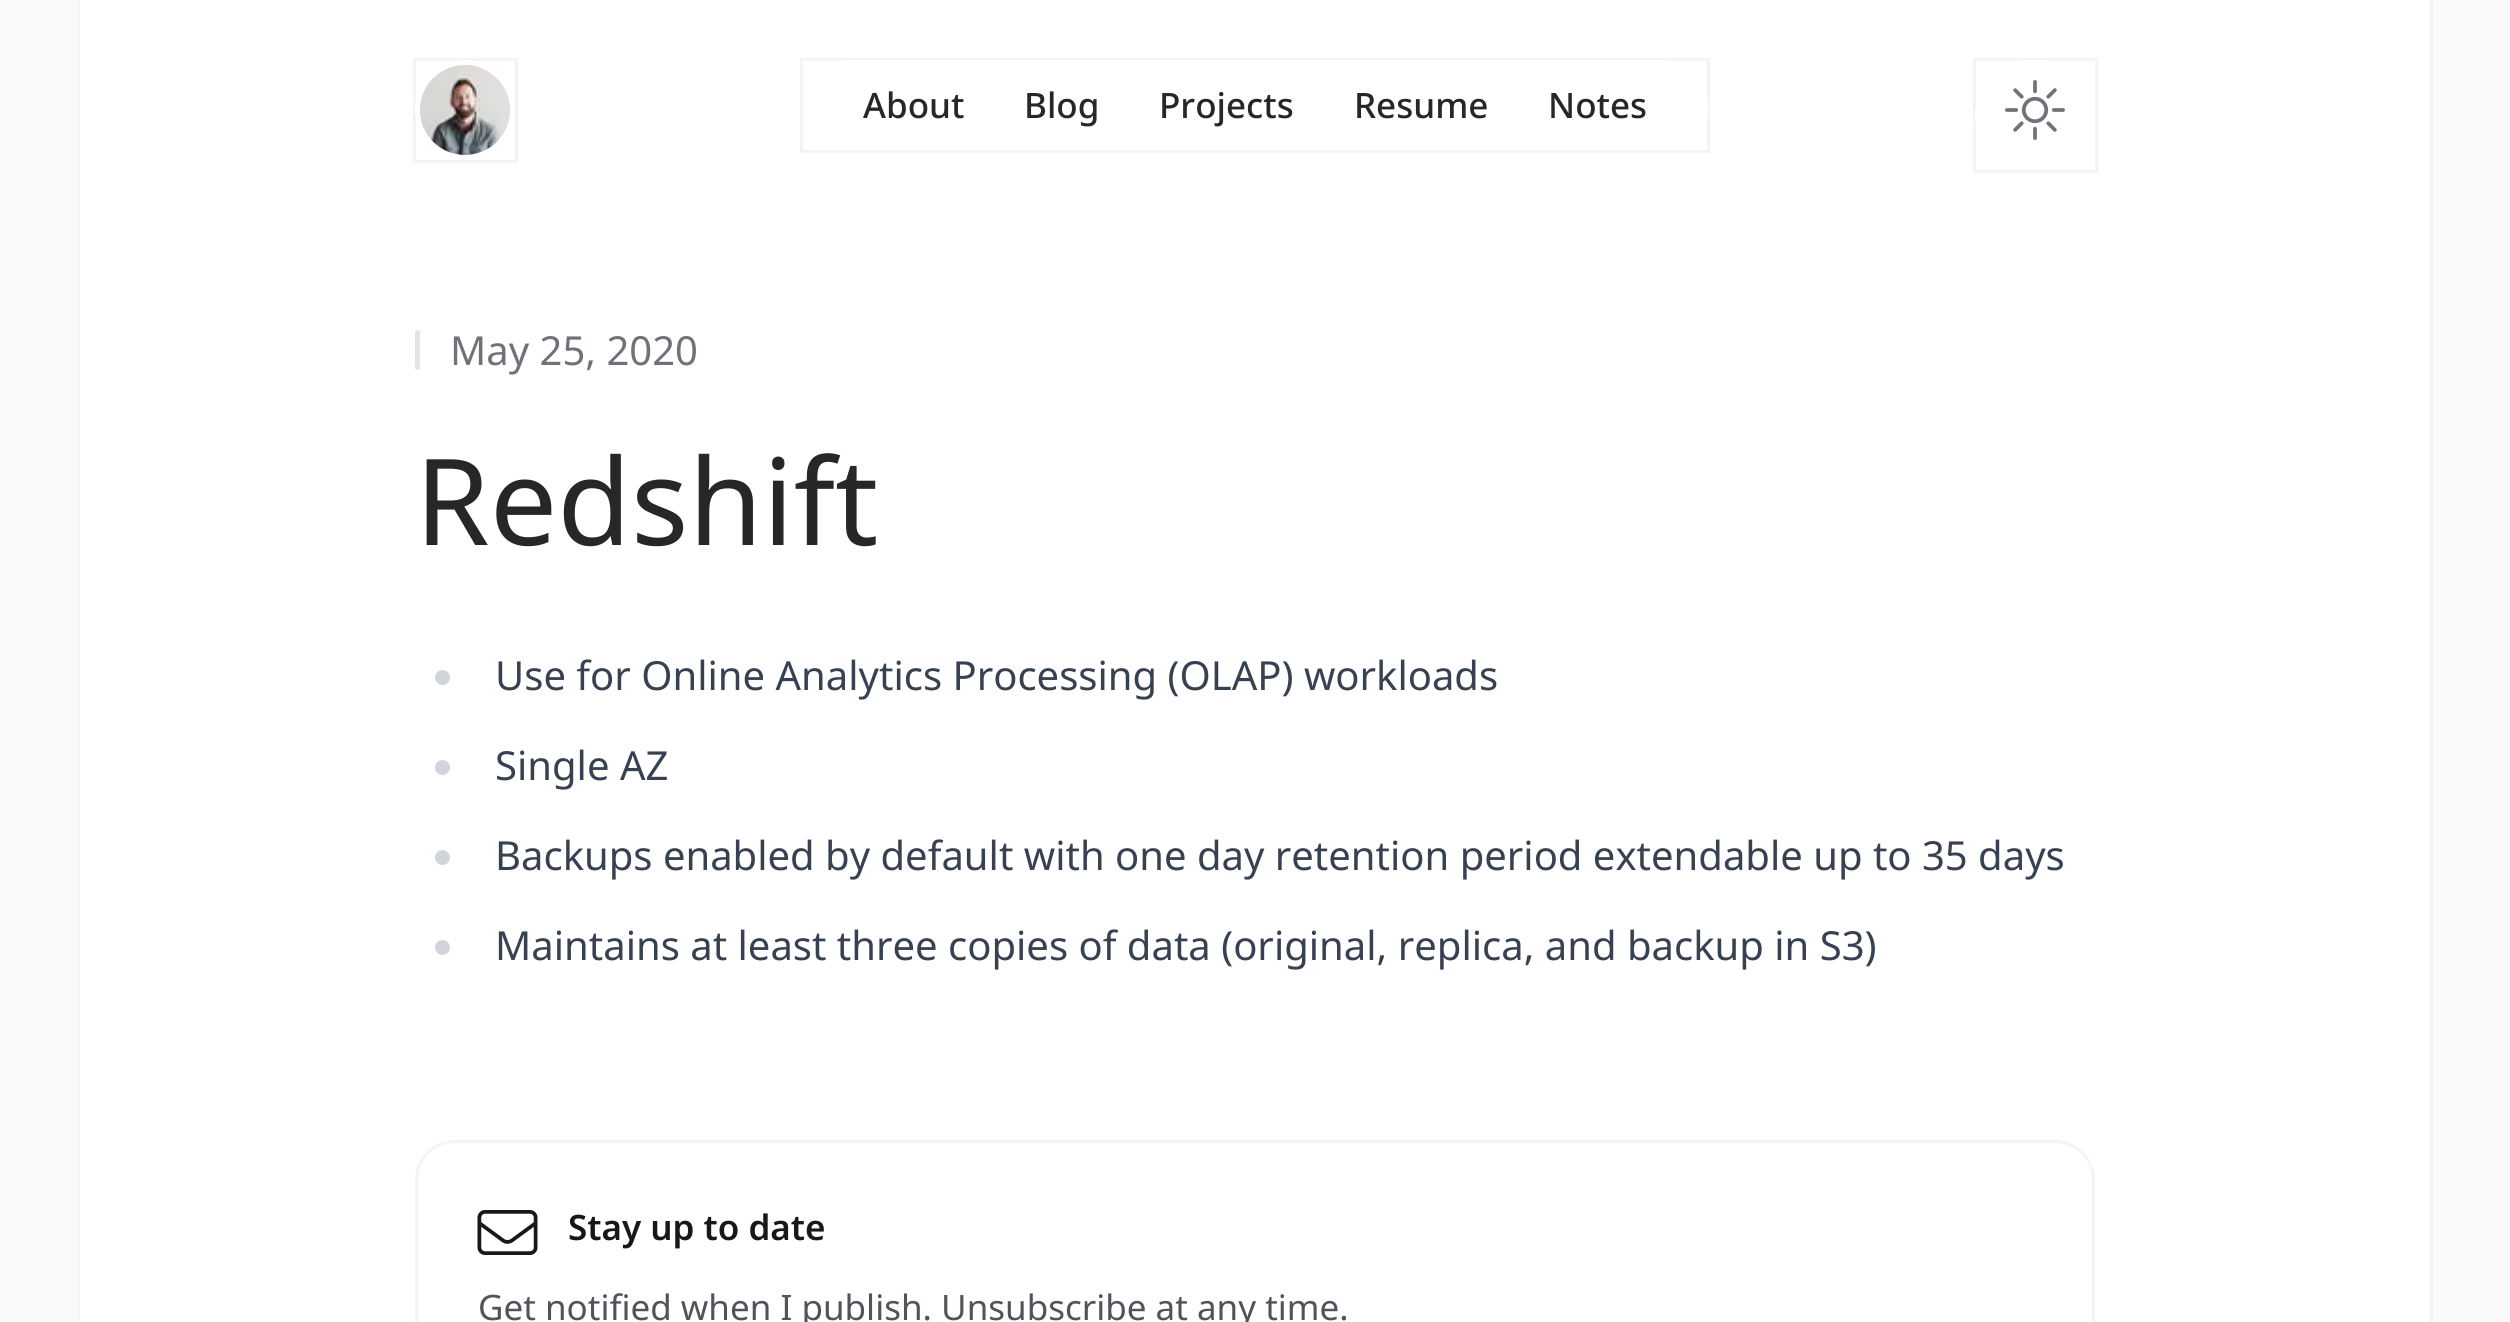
#include <cairo.h>
#include <math.h>
#include <stddef.h>


static void rgb(cairo_t *cr, int r, int g, int b)
{
	cairo_set_source_rgb(cr, r / 255.0, g / 255.0, b / 255.0);
}

static void face(cairo_t *cr, const char *family, double size, int italic, int bold)
{
	cairo_select_font_face(cr, family, italic ? CAIRO_FONT_SLANT_ITALIC : CAIRO_FONT_SLANT_NORMAL,
		bold ? CAIRO_FONT_WEIGHT_BOLD : CAIRO_FONT_WEIGHT_NORMAL);
	cairo_set_font_size(cr, size);
}

static void label(cairo_t *cr, double x, double y, const char *s)
{
	cairo_move_to(cr, x, y);
	cairo_show_text(cr, s);
}

static void rect(cairo_t *cr, double x, double y, double w, double h)
{
	cairo_rectangle(cr, x, y, w, h);
	cairo_fill(cr);
}

static void rrect(cairo_t *cr, double x, double y, double w, double h, double r)
{
	cairo_new_sub_path(cr);
	cairo_arc(cr, x + w - r, y + h - r, r, 0, M_PI / 2);
	cairo_arc(cr, x + r, y + h - r, r, M_PI / 2, M_PI);
	cairo_arc(cr, x + r, y + r, r, M_PI, 1.5 * M_PI);
	cairo_arc(cr, x + w - r, y + r, r, 1.5 * M_PI, 2 * M_PI);
	cairo_close_path(cr);
}

static void image(cairo_t *cr, const char *path, double x, double y, double w, double h)
{
	cairo_surface_t *image = cairo_image_surface_create_from_png(path);
	cairo_save(cr);
	cairo_set_source_surface(cr, image, x, y);
	cairo_rectangle(cr, x, y, w, h);
	cairo_fill(cr);
	cairo_restore(cr);
	cairo_surface_destroy(image);
}

static void draw(cairo_t *cr) {
	rgb(cr, 250, 250, 250);
	cairo_paint(cr);
	cairo_rectangle(cr, 79.5, -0.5, 2352, 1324);
	rgb(cr, 244, 244, 245);
	cairo_set_line_width(cr, 3);
	cairo_stroke(cr);
	rgb(cr, 255, 255, 255);
	rect(cr, 80, 0, 2350, 1322);
	cairo_rectangle(cr, 414.5, 59.5, 102, 102);
	cairo_set_source_rgba(cr, 0.094, 0.094, 0.106, 0.05);
	cairo_stroke(cr);
	cairo_set_source_rgba(cr, 1, 1, 1, 0.9);
	cairo_arc(cr, 465, 110, 50, 0, 2 * M_PI);
	cairo_fill(cr);
	rgb(cr, 244, 244, 245);
	cairo_arc(cr, 465, 110, 45, 0, 2 * M_PI);
	cairo_fill(cr);
	image(cr, "image0.png", 420, 65, 90, 90);
	cairo_rectangle(cr, 801.5, 59.5, 907, 92);
	cairo_set_source_rgba(cr, 0.094, 0.094, 0.106, 0.05);
	cairo_stroke(cr);
	cairo_set_source_rgba(cr, 1, 1, 1, 0.9);
	rrect(cr, 803, 60, 905, 90, 45);
	cairo_fill(cr);
	face(cr, "Noto Sans Medium", 35, 0, 0);
	rgb(cr, 39, 39, 42);
	label(cr, 863, 118, "About");
	label(cr, 1024, 118, "Blog");
	label(cr, 1159, 118, "Projects");
	label(cr, 1354, 118, "Resume");
	label(cr, 1548, 118, "Notes");
	cairo_rectangle(cr, 1974.5, 59.5, 122, 112);
	cairo_set_source_rgba(cr, 0.094, 0.094, 0.106, 0.05);
	cairo_stroke(cr);
	cairo_set_source_rgba(cr, 1, 1, 1, 0.9);
	rrect(cr, 1975, 60, 120, 110, 55);
	cairo_fill(cr);
	image(cr, "image1.png", 2005, 80, 60, 60);
	rgb(cr, 228, 228, 231);
	rrect(cr, 415, 330, 5, 40, 2.5);
	cairo_fill(cr);
	face(cr, "Noto Sans", 40, 0, 0);
	rgb(cr, 113, 113, 122);
	label(cr, 450, 365, "May 25, 2020");
	face(cr, "Noto Sans", 120, 0, 0);
	rgb(cr, 39, 39, 42);
	label(cr, 415, 545, "Redshift");
	rgb(cr, 209, 213, 219);
	cairo_new_path(cr);
	cairo_arc(cr, 442.5, 677.5, 7.5, 0, 2 * M_PI);
	cairo_fill(cr);
	face(cr, "Noto Sans", 40, 0, 0);
	rgb(cr, 55, 65, 81);
	label(cr, 495, 690, "Use for Online Analytics Processing (OLAP) workloads");
	rgb(cr, 209, 213, 219);
	cairo_new_path(cr);
	cairo_arc(cr, 442.5, 767.5, 7.5, 0, 2 * M_PI);
	cairo_fill(cr);
	rgb(cr, 55, 65, 81);
	label(cr, 495, 780, "Single AZ");
	rgb(cr, 209, 213, 219);
	cairo_new_path(cr);
	cairo_arc(cr, 442.5, 857.5, 7.5, 0, 2 * M_PI);
	cairo_fill(cr);
	rgb(cr, 55, 65, 81);
	label(cr, 495, 870, "Backups enabled by default with one day retention period extendable up to 35 days");
	rgb(cr, 209, 213, 219);
	cairo_new_path(cr);
	cairo_arc(cr, 442.5, 947.5, 7.5, 0, 2 * M_PI);
	cairo_fill(cr);
	rgb(cr, 55, 65, 81);
	label(cr, 495, 960, "Maintains at least three copies of data (original, replica, and backup in S3)");
	rrect(cr, 416.5, 1141.5, 1677, 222, 38.5);
	rgb(cr, 244, 244, 245);
	cairo_stroke(cr);
	image(cr, "image2.png", 477, 1210, 61, 45);
	face(cr, "Noto Sans SemiBold", 35, 0, 0);
	rgb(cr, 24, 24, 27);
	label(cr, 568, 1240, "Stay up to date");
	face(cr, "Noto Sans", 35, 0, 0);
	rgb(cr, 82, 82, 91);
	label(cr, 478, 1320, "Get notified when I publish. Unsubscribe at any time.");
}

int main(void) {
	cairo_surface_t *surface = cairo_image_surface_create(CAIRO_FORMAT_RGB24, 2510, 1322);
	cairo_t *cr = cairo_create(surface);
	cairo_font_options_t *options = cairo_font_options_create();
	cairo_font_options_set_hint_metrics(options, CAIRO_HINT_METRICS_OFF);
	cairo_font_options_set_hint_style(options, CAIRO_HINT_STYLE_NONE);
	cairo_set_font_options(cr, options);
	cairo_set_miter_limit(cr, 4);
	draw(cr);
	cairo_surface_write_to_png(surface, "render.png");
	cairo_font_options_destroy(options);
	cairo_destroy(cr);
	cairo_surface_destroy(surface);
	return 0;
}
